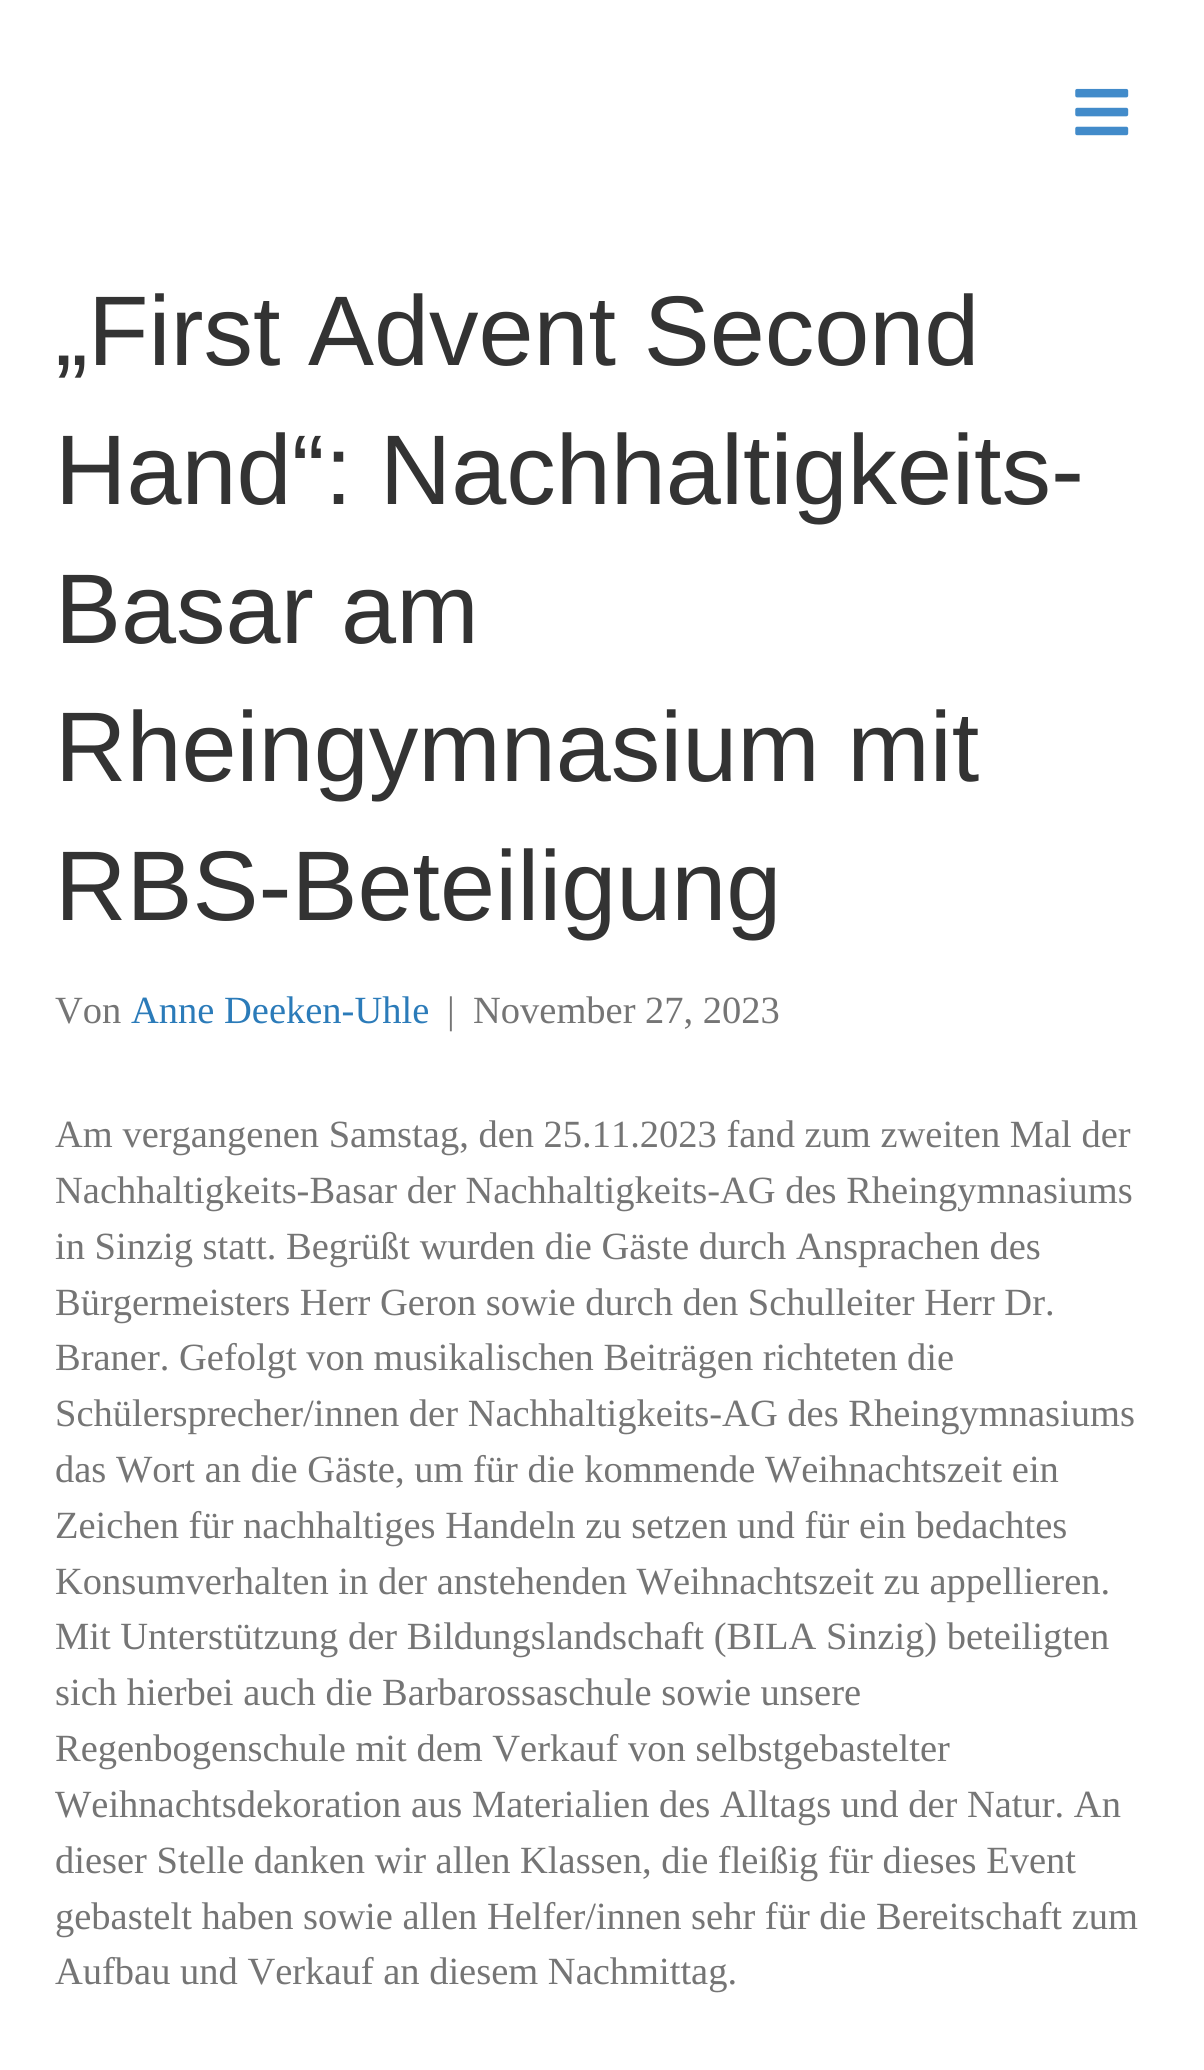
#include <cairo.h>
#include <math.h>
#include <stddef.h>


static void rgb(cairo_t *cr, int r, int g, int b)
{
	cairo_set_source_rgb(cr, r / 255.0, g / 255.0, b / 255.0);
}

static void face(cairo_t *cr, const char *family, double size, int italic, int bold)
{
	cairo_select_font_face(cr, family, italic ? CAIRO_FONT_SLANT_ITALIC : CAIRO_FONT_SLANT_NORMAL,
		bold ? CAIRO_FONT_WEIGHT_BOLD : CAIRO_FONT_WEIGHT_NORMAL);
	cairo_set_font_size(cr, size);
}

static void label(cairo_t *cr, double x, double y, const char *s)
{
	cairo_move_to(cr, x, y);
	cairo_show_text(cr, s);
}

static void image(cairo_t *cr, const char *path, double x, double y, double w, double h)
{
	cairo_surface_t *image = cairo_image_surface_create_from_png(path);
	cairo_save(cr);
	cairo_set_source_surface(cr, image, x, y);
	cairo_rectangle(cr, x, y, w, h);
	cairo_fill(cr);
	cairo_restore(cr);
	cairo_surface_destroy(image);
}

static void draw(cairo_t *cr) {
	rgb(cr, 255, 255, 255);
	cairo_paint(cr);
	image(cr, "image0.png", 1075, 88, 54, 48);
	face(cr, "Liberation Sans", 99, 0, 0);
	rgb(cr, 51, 51, 51);
	label(cr, 55, 365, "„First Advent Second");
	label(cr, 55, 504, "Hand“: Nachhaltigkeits-");
	label(cr, 55, 643, "Basar am");
	label(cr, 55, 781, "Rheingymnasium mit");
	label(cr, 55, 920, "RBS-Beteiligung");
	face(cr, "Liberation Serif", 38.5, 0, 0);
	rgb(cr, 117, 117, 117);
	label(cr, 55, 1023, "Von");
	rgb(cr, 43, 123, 185);
	label(cr, 131, 1023, "Anne Deeken-Uhle");
	rgb(cr, 117, 117, 117);
	label(cr, 447, 1023, "|");
	label(cr, 473, 1023, "November 27, 2023");
	label(cr, 55, 1147, "Am vergangenen Samstag, den 25.11.2023 fand zum zweiten Mal der");
	label(cr, 55, 1203, "Nachhaltigkeits-Basar der Nachhaltigkeits-AG des Rheingymnasiums");
	label(cr, 55, 1259, "in Sinzig statt. Begrüßt wurden die Gäste durch Ansprachen des");
	label(cr, 55, 1315, "Bürgermeisters Herr Geron sowie durch den Schulleiter Herr Dr.");
	label(cr, 55, 1370, "Braner. Gefolgt von musikalischen Beiträgen richteten die");
	label(cr, 55, 1426, "Schülersprecher/innen der Nachhaltigkeits-AG des Rheingymnasiums");
	label(cr, 55, 1482, "das Wort an die Gäste, um für die kommende Weihnachtszeit ein");
	label(cr, 55, 1538, "Zeichen für nachhaltiges Handeln zu setzen und für ein bedachtes");
	label(cr, 55, 1594, "Konsumverhalten in der anstehenden Weihnachtszeit zu appellieren.");
	label(cr, 55, 1649, "Mit Unterstützung der Bildungslandschaft (BILA Sinzig) beteiligten");
	label(cr, 55, 1705, "sich hierbei auch die Barbarossaschule sowie unsere");
	label(cr, 55, 1761, "Regenbogenschule mit dem Verkauf von selbstgebastelter");
	label(cr, 55, 1817, "Weihnachtsdekoration aus Materialien des Alltags und der Natur. An");
	label(cr, 55, 1873, "dieser Stelle danken wir allen Klassen, die fleißig für dieses Event");
	label(cr, 55, 1929, "gebastelt haben sowie allen Helfer/innen sehr für die Bereitschaft zum");
	label(cr, 55, 1984, "Aufbau und Verkauf an diesem Nachmittag.");
}

int main(void) {
	cairo_surface_t *surface = cairo_image_surface_create(CAIRO_FORMAT_RGB24, 1204, 2070);
	cairo_t *cr = cairo_create(surface);
	cairo_font_options_t *options = cairo_font_options_create();
	cairo_font_options_set_hint_metrics(options, CAIRO_HINT_METRICS_OFF);
	cairo_font_options_set_hint_style(options, CAIRO_HINT_STYLE_NONE);
	cairo_set_font_options(cr, options);
	cairo_set_miter_limit(cr, 4);
	draw(cr);
	cairo_surface_write_to_png(surface, "render.png");
	cairo_font_options_destroy(options);
	cairo_destroy(cr);
	cairo_surface_destroy(surface);
	return 0;
}
